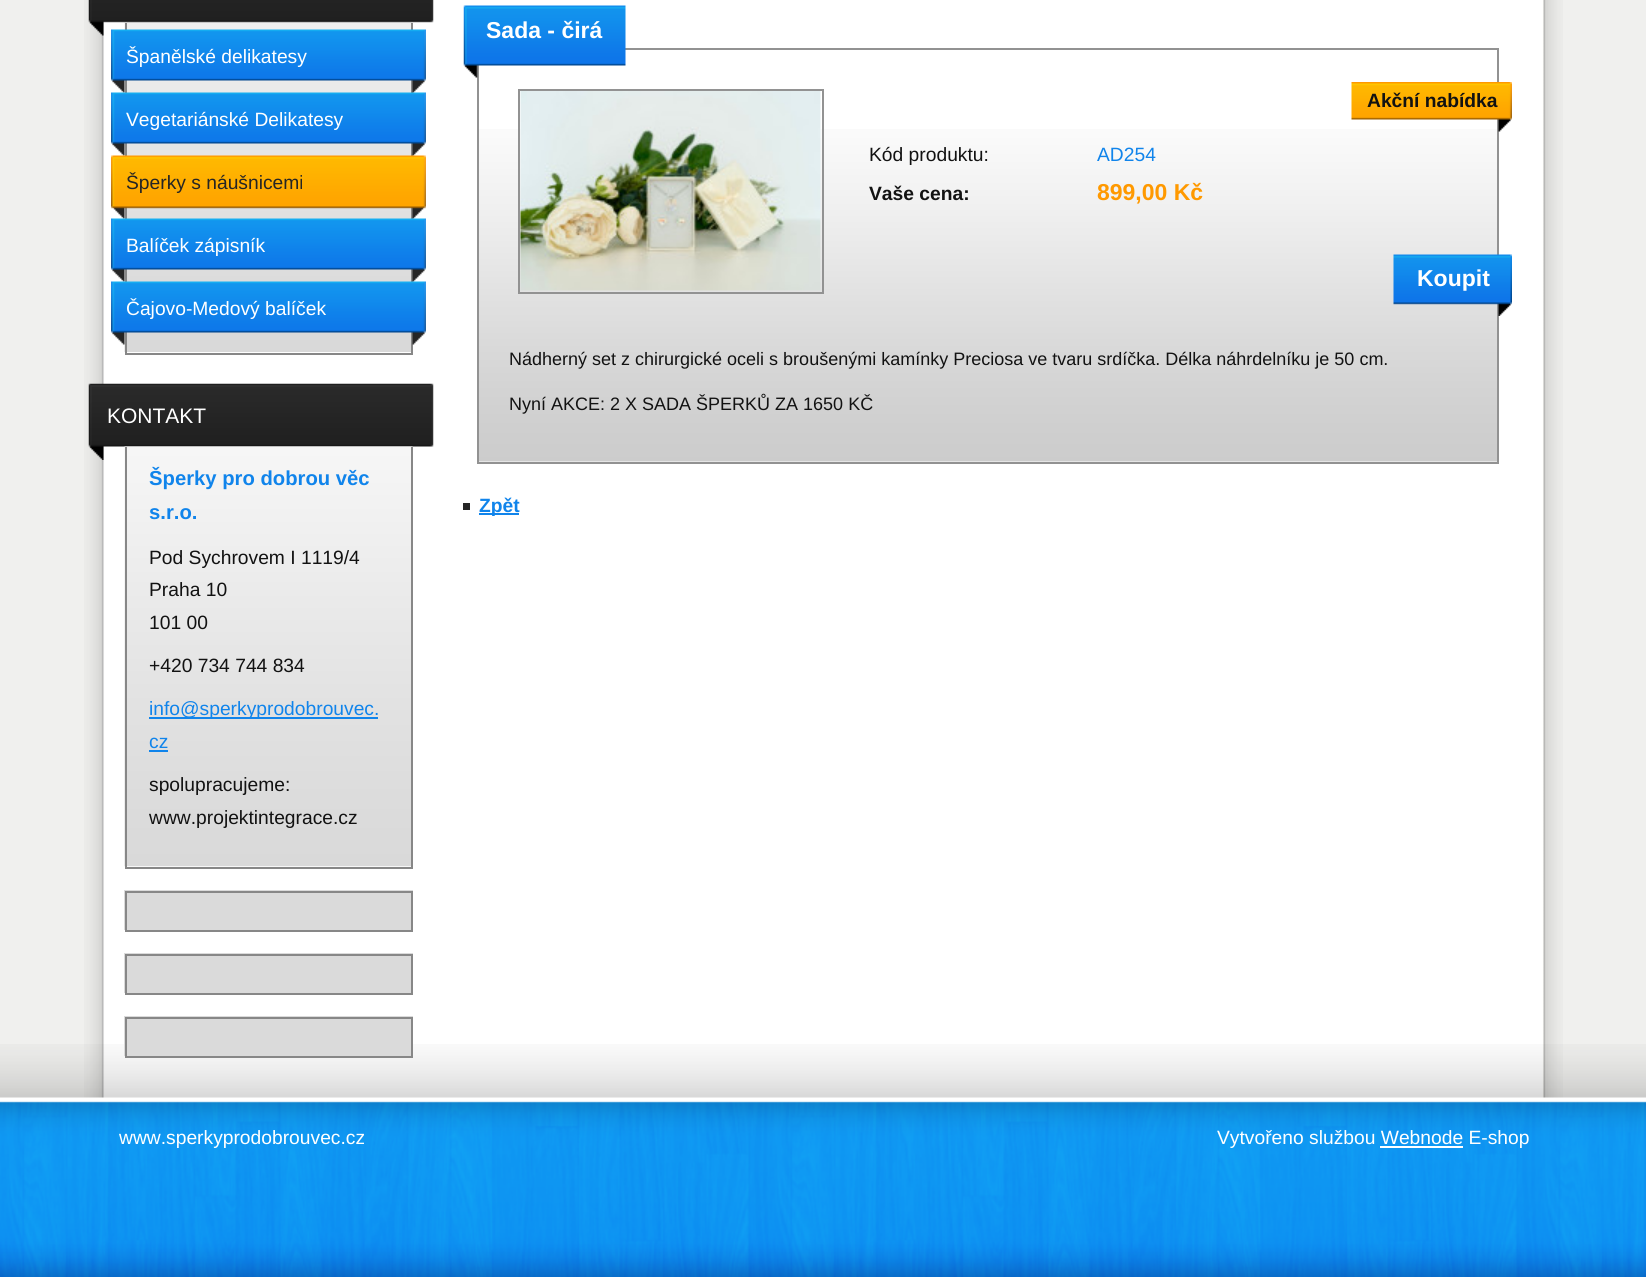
#include <cairo.h>
#include <math.h>
#include <stddef.h>


static void rgb(cairo_t *cr, int r, int g, int b)
{
	cairo_set_source_rgb(cr, r / 255.0, g / 255.0, b / 255.0);
}

static void face(cairo_t *cr, const char *family, double size, int italic, int bold)
{
	cairo_select_font_face(cr, family, italic ? CAIRO_FONT_SLANT_ITALIC : CAIRO_FONT_SLANT_NORMAL,
		bold ? CAIRO_FONT_WEIGHT_BOLD : CAIRO_FONT_WEIGHT_NORMAL);
	cairo_set_font_size(cr, size);
}

static void label(cairo_t *cr, double x, double y, const char *s)
{
	cairo_move_to(cr, x, y);
	cairo_show_text(cr, s);
}

static void rect(cairo_t *cr, double x, double y, double w, double h)
{
	cairo_rectangle(cr, x, y, w, h);
	cairo_fill(cr);
}

static void image(cairo_t *cr, const char *path, double x, double y, double w, double h)
{
	cairo_surface_t *image = cairo_image_surface_create_from_png(path);
	cairo_save(cr);
	cairo_set_source_surface(cr, image, x, y);
	cairo_rectangle(cr, x, y, w, h);
	cairo_fill(cr);
	cairo_restore(cr);
	cairo_surface_destroy(image);
}

static void draw(cairo_t *cr) {
	rgb(cr, 240, 240, 238);
	cairo_paint(cr);
	image(cr, "image0.png", 84, 0, 1479, 1098);
	image(cr, "image1.png", 0, 1044, 1646, 233);
	image(cr, "image3.png", 124, 22, 289, 330);
	rgb(cr, 135, 135, 135);
	rect(cr, 411, 23, 2, 331);
	rect(cr, 125, 353, 288, 2);
	rect(cr, 125, 23, 2, 331);
	image(cr, "image2.png", 88, 0, 346, 36);
	image(cr, "image4.png", 111, 29, 315, 64);
	face(cr, "Liberation Sans", 19.25, 0, 0);
	rgb(cr, 255, 255, 255);
	label(cr, 126, 63, "Španělské delikatesy");
	image(cr, "image5.png", 111, 92, 315, 64);
	label(cr, 126, 126, "Vegetariánské Delikatesy");
	image(cr, "image6.png", 111, 155, 315, 64);
	rgb(cr, 37, 37, 37);
	label(cr, 126, 189, "Šperky s náušnicemi");
	image(cr, "image7.png", 111, 218, 315, 64);
	rgb(cr, 255, 255, 255);
	label(cr, 126, 252, "Balíček zápisník");
	image(cr, "image8.png", 111, 281, 315, 64);
	label(cr, 126, 315, "Čajovo-Medový balíček");
	image(cr, "image9.png", 88, 383, 346, 77);
	face(cr, "Liberation Sans", 21, 0, 0);
	label(cr, 107, 423, "KONTAKT");
	image(cr, "image10.png", 124, 446, 289, 421);
	rgb(cr, 135, 135, 135);
	rect(cr, 411, 447, 2, 422);
	rect(cr, 125, 867, 288, 2);
	rect(cr, 125, 447, 2, 422);
	face(cr, "Liberation Sans", 20.25, 0, 1);
	rgb(cr, 16, 132, 235);
	label(cr, 149, 485, "Šperky pro dobrou věc");
	label(cr, 149, 519, "s.r.o.");
	face(cr, "Liberation Sans", 19.25, 0, 0);
	rgb(cr, 18, 18, 18);
	label(cr, 149, 564, "Pod Sychrovem I 1119/4");
	label(cr, 149, 596, "Praha 10");
	label(cr, 149, 629, "101 00");
	label(cr, 149, 672, "+420 734 744 834");
	rgb(cr, 16, 132, 235);
	rect(cr, 149, 717, 229, 2);
	label(cr, 149, 715, "info@sperkyprodobrouvec.");
	label(cr, 149, 748, "cz");
	rect(cr, 149, 750, 19, 2);
	rgb(cr, 18, 18, 18);
	label(cr, 149, 791, "spolupracujeme:");
	cairo_save(cr);
	cairo_rectangle(cr, 149, 462, 240, 383);
	cairo_clip(cr);
	label(cr, 149, 824, "www.projektintegrace.cz");
	cairo_restore(cr);
	rgb(cr, 218, 218, 218);
	rect(cr, 124, 890, 289, 40);
	cairo_rectangle(cr, 126, 892, 286, 39);
	rgb(cr, 135, 135, 135);
	cairo_stroke(cr);
	rgb(cr, 218, 218, 218);
	rect(cr, 124, 953, 289, 40);
	cairo_rectangle(cr, 126, 955, 286, 39);
	rgb(cr, 135, 135, 135);
	cairo_stroke(cr);
	rgb(cr, 218, 218, 218);
	rect(cr, 124, 1016, 289, 40);
	cairo_rectangle(cr, 126, 1018, 286, 39);
	rgb(cr, 135, 135, 135);
	cairo_stroke(cr);
	image(cr, "image12.png", 479, 129, 1018, 333);
	cairo_rectangle(cr, 478, 49, 1020, 414);
	rgb(cr, 146, 146, 146);
	cairo_stroke(cr);
	image(cr, "image11.png", 463, 5, 163, 73);
	face(cr, "Liberation Sans", 23, 0, 1);
	rgb(cr, 255, 255, 255);
	label(cr, 486, 38, "Sada - čirá");
	cairo_rectangle(cr, 519, 90, 304, 203);
	rgb(cr, 146, 146, 146);
	cairo_stroke(cr);
	image(cr, "image13.png", 520, 91, 301, 200);
	image(cr, "image14.png", 1351, 82, 161, 50);
	face(cr, "Liberation Sans", 19.25, 0, 1);
	rgb(cr, 18, 18, 18);
	label(cr, 1367, 107, "Akční nabídka");
	face(cr, "Liberation Sans", 19.25, 0, 0);
	label(cr, 869, 161, "Kód produktu:");
	rgb(cr, 16, 132, 235);
	label(cr, 1097, 161, "AD254");
	face(cr, "Liberation Sans", 19.25, 0, 1);
	rgb(cr, 18, 18, 18);
	label(cr, 869, 200, "Vaše cena:");
	face(cr, "Liberation Sans", 23, 0, 1);
	rgb(cr, 255, 153, 0);
	label(cr, 1097, 200, "899,00 Kč");
	image(cr, "image15.png", 1393, 254, 119, 62);
	rgb(cr, 255, 255, 255);
	label(cr, 1417, 286, "Koupit");
	face(cr, "Liberation Sans", 18, 0, 0);
	rgb(cr, 18, 18, 18);
	label(cr, 509, 365, "Nádherný set z chirurgické oceli s broušenými kamínky Preciosa ve tvaru srdíčka. Délka náhrdelníku je 50 cm.");
	label(cr, 509, 410, "Nyní AKCE: 2 X SADA ŠPERKŮ ZA 1650 KČ");
	rgb(cr, 16, 132, 235);
	rect(cr, 479, 513, 40, 2);
	face(cr, "Liberation Sans", 19.25, 0, 1);
	label(cr, 479, 512, "Zpět");
	rgb(cr, 37, 37, 37);
	rect(cr, 463, 503, 7, 7);
	cairo_save(cr);
	cairo_rectangle(cr, 119, 1121, 1410, 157);
	cairo_clip(cr);
	face(cr, "Liberation Sans", 19.25, 0, 0);
	rgb(cr, 255, 255, 255);
	label(cr, 119, 1144, "www.sperkyprodobrouvec.cz");
	cairo_restore(cr);
	face(cr, "Liberation Sans", 19.25, 0, 0);
	rgb(cr, 255, 255, 255);
	label(cr, 1217, 1144, "Vytvořeno službou Webnode E-shop");
	rect(cr, 1380, 1146, 83, 2);
}

int main(void) {
	cairo_surface_t *surface = cairo_image_surface_create(CAIRO_FORMAT_RGB24, 1646, 1277);
	cairo_t *cr = cairo_create(surface);
	cairo_font_options_t *options = cairo_font_options_create();
	cairo_font_options_set_hint_metrics(options, CAIRO_HINT_METRICS_OFF);
	cairo_font_options_set_hint_style(options, CAIRO_HINT_STYLE_NONE);
	cairo_set_font_options(cr, options);
	cairo_set_miter_limit(cr, 4);
	draw(cr);
	cairo_surface_write_to_png(surface, "render.png");
	cairo_font_options_destroy(options);
	cairo_destroy(cr);
	cairo_surface_destroy(surface);
	return 0;
}
